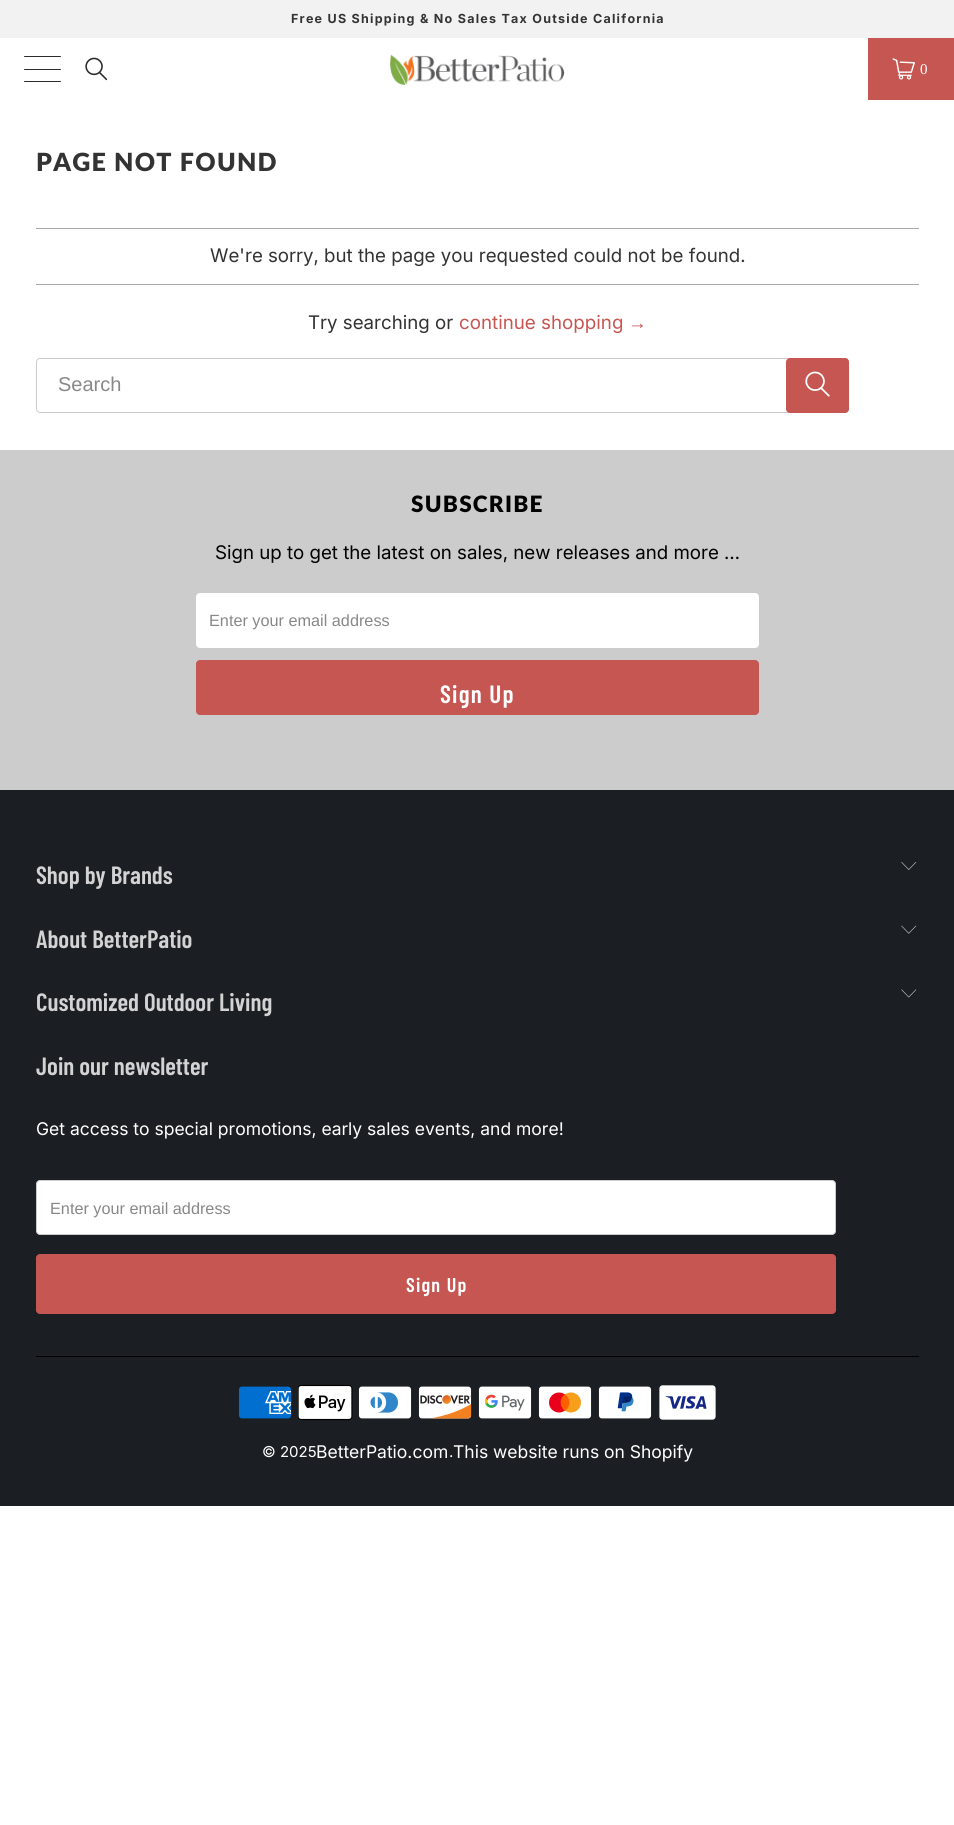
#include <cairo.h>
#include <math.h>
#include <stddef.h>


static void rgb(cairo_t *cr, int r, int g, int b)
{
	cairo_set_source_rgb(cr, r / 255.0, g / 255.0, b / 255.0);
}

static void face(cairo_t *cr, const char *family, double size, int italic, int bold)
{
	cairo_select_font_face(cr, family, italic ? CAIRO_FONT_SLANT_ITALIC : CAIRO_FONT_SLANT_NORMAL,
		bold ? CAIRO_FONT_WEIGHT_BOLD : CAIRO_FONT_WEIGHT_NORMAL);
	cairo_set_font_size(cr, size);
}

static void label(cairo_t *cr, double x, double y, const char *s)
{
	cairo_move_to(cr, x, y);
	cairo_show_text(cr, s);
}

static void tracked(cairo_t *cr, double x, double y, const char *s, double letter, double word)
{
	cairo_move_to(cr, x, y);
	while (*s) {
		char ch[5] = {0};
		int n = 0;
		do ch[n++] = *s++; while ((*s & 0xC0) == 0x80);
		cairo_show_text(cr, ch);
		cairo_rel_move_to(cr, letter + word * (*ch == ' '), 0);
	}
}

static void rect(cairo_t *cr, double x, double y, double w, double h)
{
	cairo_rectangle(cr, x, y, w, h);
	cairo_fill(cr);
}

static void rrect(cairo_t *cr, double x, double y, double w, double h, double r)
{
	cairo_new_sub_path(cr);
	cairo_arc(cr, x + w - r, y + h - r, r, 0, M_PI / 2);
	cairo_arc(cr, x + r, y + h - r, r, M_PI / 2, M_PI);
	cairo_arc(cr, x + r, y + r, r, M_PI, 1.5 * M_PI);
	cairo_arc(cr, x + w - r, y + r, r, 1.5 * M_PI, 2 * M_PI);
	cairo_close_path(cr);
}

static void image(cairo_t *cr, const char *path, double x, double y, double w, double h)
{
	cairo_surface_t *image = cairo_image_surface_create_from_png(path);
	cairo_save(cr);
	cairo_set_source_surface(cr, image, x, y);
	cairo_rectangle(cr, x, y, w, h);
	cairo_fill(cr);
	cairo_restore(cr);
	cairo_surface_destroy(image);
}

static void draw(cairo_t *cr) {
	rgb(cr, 255, 255, 255);
	cairo_paint(cr);
	rgb(cr, 242, 242, 242);
	rect(cr, 0, 0, 954, 38);
	face(cr, "Inter", 12.5, 0, 1);
	rgb(cr, 51, 51, 51);
	tracked(cr, 291, 23, "Free US Shipping & No Sales Tax Outside California", 1.25, 0);
	rgb(cr, 43, 43, 43);
	rrect(cr, 24, 56, 37, 1, 0.5);
	cairo_fill(cr);
	rrect(cr, 24, 69, 37, 1, 0.5);
	cairo_fill(cr);
	rrect(cr, 24, 81, 37, 1, 0.5);
	cairo_fill(cr);
	image(cr, "image0.png", 85, 57, 23, 24);
	image(cr, "image1.png", 390, 54, 175, 31);
	rgb(cr, 198, 86, 82);
	rect(cr, 868, 38, 86, 62);
	image(cr, "image2.png", 892, 58, 23, 22);
	face(cr, "Liberation Serif", 15, 0, 0);
	rgb(cr, 255, 255, 255);
	label(cr, 920, 74, "0");
	face(cr, "Lato ExtraBold", 25, 0, 0);
	rgb(cr, 51, 51, 51);
	tracked(cr, 36, 171, "PAGE NOT FOUND", 1.25, 0);
	rgb(cr, 170, 170, 170);
	rect(cr, 36, 228, 883, 1);
	rect(cr, 36, 284, 883, 1);
	face(cr, "Inter", 18.75, 0, 0);
	rgb(cr, 51, 51, 51);
	label(cr, 210, 262, "We're sorry, but the page you requested could not be found.");
	label(cr, 308, 329, "Try searching or");
	face(cr, "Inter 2", 18.75, 0, 0);
	rgb(cr, 198, 86, 82);
	label(cr, 459, 329, "continue shopping");
	face(cr, "Liberation Sans", 18.75, 0, 0);
	label(cr, 628, 329, "→");
	rrect(cr, 36.5, 358.5, 812, 54, 3.5);
	rgb(cr, 204, 204, 204);
	cairo_set_line_width(cr, 1);
	cairo_stroke(cr);
	face(cr, "Liberation Sans", 20, 0, 0);
	rgb(cr, 136, 136, 136);
	label(cr, 58, 391, "Search");
	rgb(cr, 198, 86, 82);
	rrect(cr, 786, 358, 63, 55, 4);
	cairo_fill(cr);
	image(cr, "image3.png", 805, 371, 25, 26);
	rgb(cr, 204, 204, 204);
	rect(cr, 0, 450, 954, 340);
	face(cr, "Lato ExtraBold", 22.5, 0, 0);
	rgb(cr, 0, 0, 0);
	tracked(cr, 411, 512, "SUBSCRIBE", 1.25, 0);
	face(cr, "Inter", 18.75, 0, 0);
	label(cr, 215, 559, "Sign up to get the latest on sales, new releases and more …");
	rgb(cr, 255, 255, 255);
	rrect(cr, 196, 593, 563, 55, 4);
	cairo_fill(cr);
	face(cr, "Liberation Sans", 16.25, 0, 0);
	rgb(cr, 136, 136, 136);
	label(cr, 209, 626, "Enter your email address");
	rgb(cr, 198, 86, 82);
	rrect(cr, 196.5, 660.5, 562, 54, 3.5);
	cairo_fill_preserve(cr);
	cairo_stroke(cr);
	face(cr, "Barlow Condensed SemiBold", 25, 0, 0);
	rgb(cr, 255, 255, 255);
	tracked(cr, 440, 703, "Sign Up", 1.25, 0);
	rgb(cr, 27, 31, 35);
	rect(cr, 0, 790, 954, 716);
	rgb(cr, 211, 211, 211);
	label(cr, 36, 884, "Shop by Brands");
	image(cr, "image4.png", 901, 862, 16, 8);
	label(cr, 36, 948, "About BetterPatio");
	image(cr, "image5.png", 901, 925, 16, 9);
	label(cr, 36, 1011, "Customized Outdoor Living");
	image(cr, "image6.png", 901, 989, 16, 9);
	label(cr, 36, 1075, "Join our newsletter");
	face(cr, "Inter 2", 17.5, 0, 0);
	rgb(cr, 255, 255, 255);
	label(cr, 36, 1135, "Get access to special promotions, early sales events, and more!");
	rrect(cr, 36.5, 1180.5, 799, 54, 3.5);
	cairo_fill_preserve(cr);
	rgb(cr, 204, 204, 204);
	cairo_stroke(cr);
	face(cr, "Liberation Sans", 16.25, 0, 0);
	rgb(cr, 136, 136, 136);
	label(cr, 50, 1214, "Enter your email address");
	rgb(cr, 198, 86, 82);
	rrect(cr, 36.5, 1254.5, 799, 59, 3.5);
	cairo_fill_preserve(cr);
	cairo_stroke(cr);
	face(cr, "Barlow Condensed SemiBold", 20, 0, 0);
	rgb(cr, 255, 255, 255);
	tracked(cr, 406, 1292, "Sign Up", 1.25, 0);
	rgb(cr, 0, 0, 0);
	rect(cr, 36, 1356, 883, 1);
	image(cr, "image7.png", 238, 1386, 54, 33);
	image(cr, "image8.png", 298, 1384, 55, 37);
	image(cr, "image9.png", 358, 1386, 54, 33);
	image(cr, "image10.png", 418, 1386, 54, 33);
	image(cr, "image11.png", 478, 1386, 54, 33);
	image(cr, "image12.png", 538, 1386, 54, 33);
	image(cr, "image13.png", 598, 1386, 54, 33);
	image(cr, "image14.png", 659, 1385, 57, 35);
	face(cr, "Inter 2", 15, 0, 0);
	rgb(cr, 255, 255, 255);
	label(cr, 262, 1457, "© 2025");
	face(cr, "Inter 2", 17.5, 0, 0);
	label(cr, 316, 1458, "BetterPatio.com");
	face(cr, "Inter 2", 15, 0, 0);
	label(cr, 449, 1457, ".");
	face(cr, "Inter 2", 17.5, 0, 0);
	label(cr, 453, 1458, "This website runs on Shopify");
}

int main(void) {
	cairo_surface_t *surface = cairo_image_surface_create(CAIRO_FORMAT_RGB24, 954, 1825);
	cairo_t *cr = cairo_create(surface);
	cairo_font_options_t *options = cairo_font_options_create();
	cairo_font_options_set_hint_metrics(options, CAIRO_HINT_METRICS_OFF);
	cairo_font_options_set_hint_style(options, CAIRO_HINT_STYLE_NONE);
	cairo_set_font_options(cr, options);
	cairo_set_miter_limit(cr, 4);
	draw(cr);
	cairo_surface_write_to_png(surface, "render.png");
	cairo_font_options_destroy(options);
	cairo_destroy(cr);
	cairo_surface_destroy(surface);
	return 0;
}
